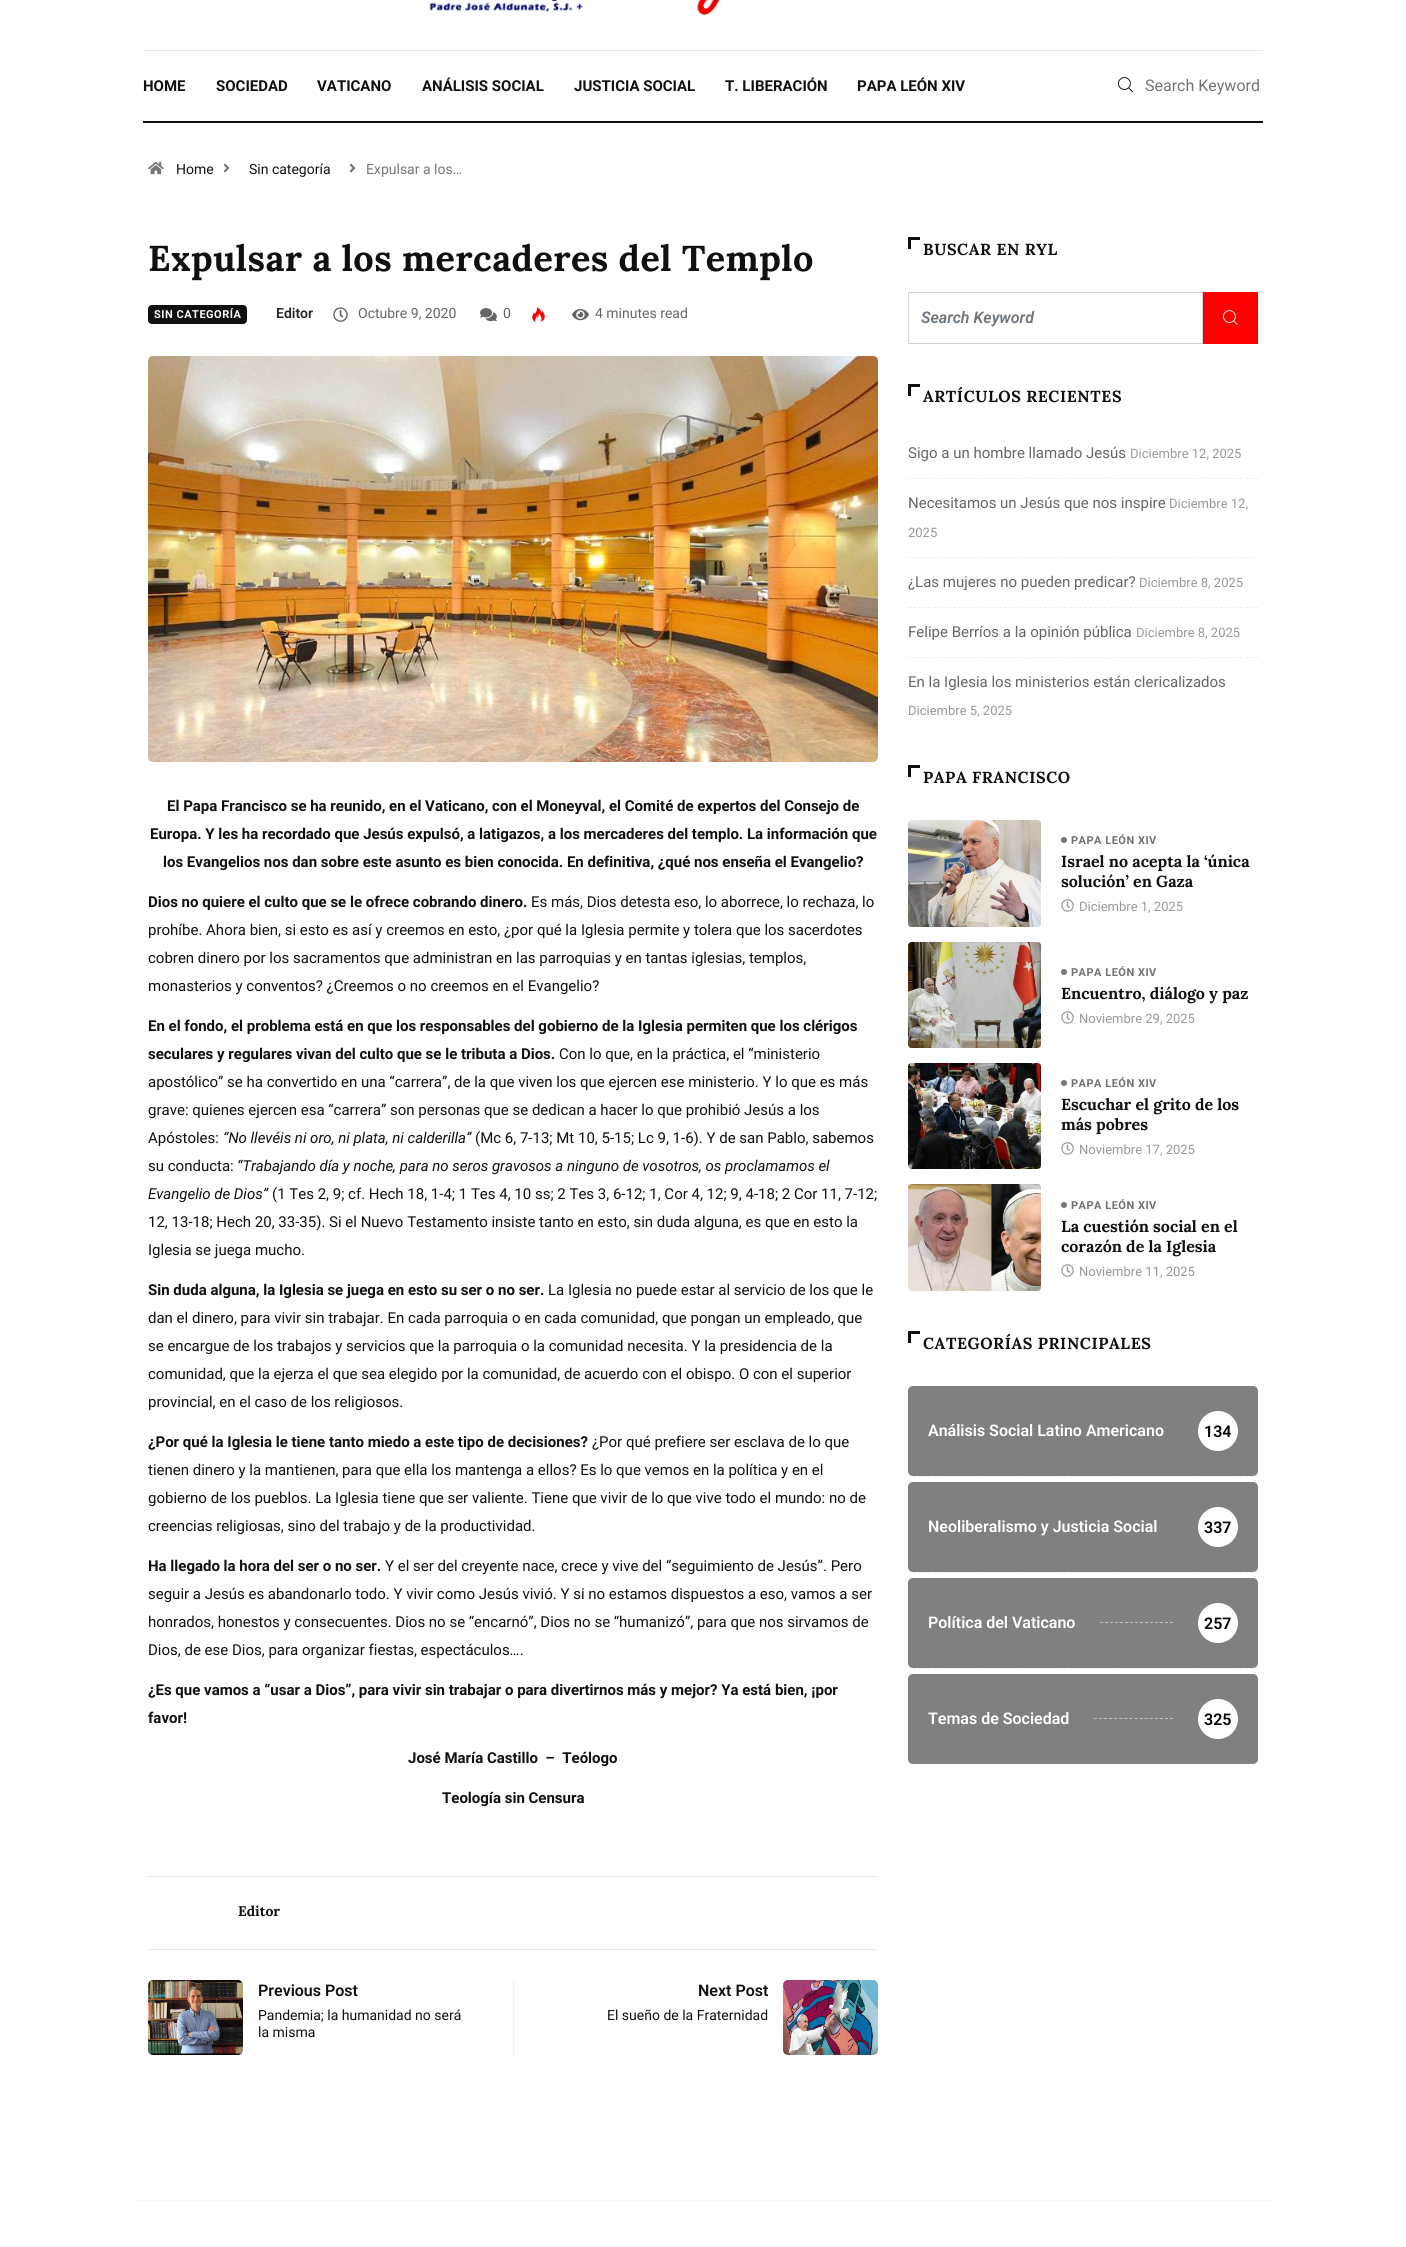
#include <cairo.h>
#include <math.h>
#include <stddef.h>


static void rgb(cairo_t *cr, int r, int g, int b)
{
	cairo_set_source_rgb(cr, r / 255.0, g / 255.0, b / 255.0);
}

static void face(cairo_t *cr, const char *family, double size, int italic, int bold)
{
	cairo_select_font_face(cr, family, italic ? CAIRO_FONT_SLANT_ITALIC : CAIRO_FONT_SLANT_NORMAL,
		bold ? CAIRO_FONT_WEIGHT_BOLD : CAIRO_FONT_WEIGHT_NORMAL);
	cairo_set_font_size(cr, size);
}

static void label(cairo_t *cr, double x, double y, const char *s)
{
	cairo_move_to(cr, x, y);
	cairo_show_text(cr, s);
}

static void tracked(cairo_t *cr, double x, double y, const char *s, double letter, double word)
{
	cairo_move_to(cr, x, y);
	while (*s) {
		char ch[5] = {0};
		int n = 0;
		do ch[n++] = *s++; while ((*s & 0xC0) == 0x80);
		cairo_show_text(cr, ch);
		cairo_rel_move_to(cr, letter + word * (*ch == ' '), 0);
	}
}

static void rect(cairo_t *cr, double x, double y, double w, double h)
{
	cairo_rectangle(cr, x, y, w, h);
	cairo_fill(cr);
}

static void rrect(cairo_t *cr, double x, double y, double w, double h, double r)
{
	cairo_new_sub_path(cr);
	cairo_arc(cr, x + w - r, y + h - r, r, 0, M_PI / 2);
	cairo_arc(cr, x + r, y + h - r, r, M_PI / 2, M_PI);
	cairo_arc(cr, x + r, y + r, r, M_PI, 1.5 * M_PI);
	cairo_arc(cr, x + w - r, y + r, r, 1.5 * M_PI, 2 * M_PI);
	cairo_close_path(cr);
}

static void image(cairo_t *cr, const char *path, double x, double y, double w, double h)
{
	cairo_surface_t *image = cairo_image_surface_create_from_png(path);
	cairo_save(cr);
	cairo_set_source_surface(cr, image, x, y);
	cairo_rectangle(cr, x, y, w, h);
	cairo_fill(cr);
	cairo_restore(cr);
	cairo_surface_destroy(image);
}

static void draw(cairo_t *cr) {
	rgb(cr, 255, 255, 255);
	cairo_paint(cr);
	rgb(cr, 234, 234, 234);
	rect(cr, 143, 50, 1120, 1);
	image(cr, "image0.png", 429, 0, 291, 15);
	rgb(cr, 16, 16, 16);
	rect(cr, 143, 121, 1120, 2);
	face(cr, "Roboto", 15, 0, 1);
	label(cr, 143, 91, "HOME");
	label(cr, 216, 91, "SOCIEDAD");
	label(cr, 317, 91, "VATICANO");
	label(cr, 422, 91, "ANÁLISIS SOCIAL");
	label(cr, 574, 91, "JUSTICIA SOCIAL");
	label(cr, 725, 91, "T. LIBERACIÓN");
	label(cr, 857, 91, "PAPA LEÓN XIV");
	image(cr, "image1.png", 1118, 77, 15, 16);
	face(cr, "Roboto", 16, 0, 0);
	rgb(cr, 108, 117, 125);
	label(cr, 1145, 91, "Search Keyword");
	image(cr, "image2.png", 148, 161, 16, 14);
	face(cr, "Roboto", 14, 0, 0);
	rgb(cr, 16, 16, 16);
	label(cr, 176, 174, "Home");
	image(cr, "image3.png", 223, 163, 7, 10);
	label(cr, 249, 174, "Sin categoría");
	image(cr, "image3.png", 349, 163, 7, 10);
	rgb(cr, 119, 119, 119);
	label(cr, 366, 174, "Expulsar a los…");
	face(cr, "Lora", 36, 0, 1);
	rgb(cr, 16, 16, 16);
	tracked(cr, 148, 271, "Expulsar a los mercaderes del Templo", 0.45, 0);
	rrect(cr, 148, 305, 99, 19, 4);
	cairo_fill(cr);
	face(cr, "Roboto", 11, 0, 1);
	rgb(cr, 255, 255, 255);
	tracked(cr, 154, 318, "SIN CATEGORÍA", 0.5, 0);
	face(cr, "Roboto SemiBold", 14, 0, 0);
	rgb(cr, 35, 35, 35);
	label(cr, 276, 318, "Editor");
	image(cr, "image4.png", 333, 307, 15, 15);
	face(cr, "Roboto", 14, 0, 0);
	rgb(cr, 102, 102, 102);
	label(cr, 358, 318, "Octubre 9, 2020");
	image(cr, "image5.png", 480, 308, 17, 14);
	rgb(cr, 92, 92, 92);
	label(cr, 503, 318, "0");
	image(cr, "image6.png", 532, 307, 13, 15);
	image(cr, "image7.png", 572, 309, 17, 12);
	rgb(cr, 102, 102, 102);
	label(cr, 595, 318, "4 minutes read");
	image(cr, "image8.png", 148, 356, 730, 406);
	face(cr, "Roboto", 15, 0, 1);
	rgb(cr, 16, 16, 16);
	label(cr, 167, 811, "El Papa Francisco se ha reunido, en el Vaticano, con el Moneyval, el Comité de expertos del Consejo de");
	label(cr, 150, 839, "Europa. Y les ha recordado que Jesús expulsó, a latigazos, a los mercaderes del templo. La información que");
	label(cr, 163, 867, "los Evangelios nos dan sobre este asunto es bien conocida. En definitiva, ¿qué nos enseña el Evangelio?");
	label(cr, 148, 907, "Dios no quiere el culto que se le ofrece cobrando dinero.");
	face(cr, "Roboto", 15, 0, 0);
	label(cr, 531, 907, "Es más, Dios detesta eso, lo aborrece, lo rechaza, lo");
	label(cr, 148, 935, "prohíbe. Ahora bien, si esto es así y creemos en esto, ¿por qué la Iglesia permite y tolera que los sacerdotes");
	label(cr, 148, 963, "cobren dinero por los sacramentos que administran en las parroquias y en tantas iglesias, templos,");
	label(cr, 148, 991, "monasterios y conventos? ¿Creemos o no creemos en el Evangelio?");
	face(cr, "Roboto", 15, 0, 1);
	label(cr, 148, 1031, "En el fondo, el problema está en que los responsables del gobierno de la Iglesia permiten que los clérigos");
	label(cr, 148, 1059, "seculares y regulares vivan del culto que se le tributa a Dios.");
	face(cr, "Roboto", 15, 0, 0);
	label(cr, 559, 1059, "Con lo que, en la práctica, el “ministerio");
	label(cr, 148, 1087, "apostólico” se ha convertido en una “carrera”, de la que viven los que ejercen ese ministerio. Y lo que es más");
	label(cr, 148, 1115, "grave: quienes ejercen esa “carrera” son personas que se dedican a hacer lo que prohibió Jesús a los");
	label(cr, 148, 1143, "Apóstoles:");
	face(cr, "Roboto", 15, 1, 0);
	label(cr, 223, 1143, "“No llevéis ni oro, ni plata, ni calderilla”");
	face(cr, "Roboto", 15, 0, 0);
	label(cr, 475, 1143, "(Mc 6, 7-13; Mt 10, 5-15; Lc 9, 1-6). Y de san Pablo, sabemos");
	label(cr, 148, 1171, "su conducta:");
	face(cr, "Roboto", 15, 1, 0);
	label(cr, 237, 1171, "“Trabajando día y noche, para no seros gravosos a ninguno de vosotros, os proclamamos el");
	label(cr, 148, 1199, "Evangelio de Dios”");
	face(cr, "Roboto", 15, 0, 0);
	label(cr, 272, 1199, "(1 Tes 2, 9; cf. Hech 18, 1-4; 1 Tes 4, 10 ss; 2 Tes 3, 6-12; 1, Cor 4, 12; 9, 4-18; 2 Cor 11, 7-12;");
	label(cr, 148, 1227, "12, 13-18; Hech 20, 33-35). Si el Nuevo Testamento insiste tanto en esto, sin duda alguna, es que en esto la");
	label(cr, 148, 1255, "Iglesia se juega mucho.");
	face(cr, "Roboto", 15, 0, 1);
	label(cr, 148, 1295, "Sin duda alguna, la Iglesia se juega en esto su ser o no ser.");
	face(cr, "Roboto", 15, 0, 0);
	label(cr, 548, 1295, "La Iglesia no puede estar al servicio de los que le");
	label(cr, 148, 1323, "dan el dinero, para vivir sin trabajar. En cada parroquia o en cada comunidad, que pongan un empleado, que");
	label(cr, 148, 1351, "se encargue de los trabajos y servicios que la parroquia o la comunidad necesita. Y la presidencia de la");
	label(cr, 148, 1379, "comunidad, que la ejerza el que sea elegido por la comunidad, de acuerdo con el obispo. O con el superior");
	label(cr, 148, 1407, "provincial, en el caso de los religiosos.");
	face(cr, "Roboto", 15, 0, 1);
	label(cr, 148, 1447, "¿Por qué la Iglesia le tiene tanto miedo a este tipo de decisiones?");
	face(cr, "Roboto", 15, 0, 0);
	label(cr, 592, 1447, "¿Por qué prefiere ser esclava de lo que");
	label(cr, 148, 1475, "tienen dinero y la mantienen, para que ella los mantenga a ellos? Es lo que vemos en la política y en el");
	label(cr, 148, 1503, "gobierno de los pueblos. La Iglesia tiene que ser valiente. Tiene que vivir de lo que vive todo el mundo: no de");
	label(cr, 148, 1531, "creencias religiosas, sino del trabajo y de la productividad.");
	face(cr, "Roboto", 15, 0, 1);
	label(cr, 148, 1571, "Ha llegado la hora del ser o no ser.");
	face(cr, "Roboto", 15, 0, 0);
	label(cr, 385, 1571, "Y el ser del creyente nace, crece y vive del “seguimiento de Jesús”. Pero");
	label(cr, 148, 1599, "seguir a Jesús es abandonarlo todo. Y vivir como Jesús vivió. Y si no estamos dispuestos a eso, vamos a ser");
	label(cr, 148, 1627, "honrados, honestos y consecuentes. Dios no se “encarnó”, Dios no se “humanizó”, para que nos sirvamos de");
	label(cr, 148, 1655, "Dios, de ese Dios, para organizar fiestas, espectáculos….");
	face(cr, "Roboto", 15, 0, 1);
	label(cr, 148, 1695, "¿Es que vamos a “usar a Dios”, para vivir sin trabajar o para divertirnos más y mejor? Ya está bien, ¡por");
	label(cr, 148, 1723, "favor!");
	label(cr, 408, 1763, "José María Castillo  –  Teólogo");
	label(cr, 442, 1803, "Teología sin Censura");
	rgb(cr, 234, 234, 234);
	rect(cr, 148, 1876, 730, 1);
	rect(cr, 148, 1949, 730, 1);
	face(cr, "Lora", 14, 0, 1);
	rgb(cr, 16, 16, 16);
	label(cr, 238, 1916, "Editor");
	image(cr, "image9.png", 148, 1980, 95, 75);
	face(cr, "Roboto SemiBold", 16, 0, 0);
	label(cr, 258, 1996, "Previous Post");
	face(cr, "Roboto", 14, 0, 0);
	label(cr, 258, 2020, "Pandemia; la humanidad no será");
	label(cr, 258, 2037, "la misma");
	rgb(cr, 238, 238, 238);
	rect(cr, 513, 1980, 1, 75);
	face(cr, "Roboto SemiBold", 16, 0, 0);
	rgb(cr, 16, 16, 16);
	label(cr, 698, 1996, "Next Post");
	face(cr, "Roboto", 14, 0, 0);
	label(cr, 607, 2020, "El sueño de la Fraternidad");
	image(cr, "image10.png", 783, 1980, 95, 75);
	rect(cr, 908, 237, 3, 12);
	rect(cr, 908, 237, 12, 3);
	face(cr, "Lora", 16, 0, 1);
	tracked(cr, 923, 255, "BUSCAR EN RYL", 0.6, 0);
	cairo_rectangle(cr, 908.5, 292.5, 294, 51);
	rgb(cr, 206, 212, 218);
	cairo_set_line_width(cr, 1);
	cairo_stroke(cr);
	face(cr, "Roboto SemiBold", 16, 1, 0);
	rgb(cr, 108, 117, 125);
	label(cr, 921, 323, "Search Keyword");
	rgb(cr, 255, 0, 0);
	rect(cr, 1203, 292, 55, 52);
	image(cr, "image11.png", 1223, 310, 15, 16);
	rgb(cr, 16, 16, 16);
	rect(cr, 908, 384, 3, 12);
	rect(cr, 908, 384, 12, 3);
	face(cr, "Lora", 16, 0, 1);
	tracked(cr, 923, 402, "ARTÍCULOS RECIENTES", 0.6, 0);
	cairo_new_path(cr);
	cairo_move_to(cr, 908, 478.5);
	cairo_line_to(cr, 1258, 478.5);
	rgb(cr, 238, 238, 238);
	cairo_set_dash(cr, (double[]){3, 2.03}, 2, 0);
	cairo_stroke(cr);
	face(cr, "Roboto", 15, 0, 0);
	rgb(cr, 102, 102, 102);
	label(cr, 908, 458, "Sigo a un hombre llamado Jesús");
	face(cr, "Roboto", 13, 0, 0);
	rgb(cr, 153, 153, 153);
	label(cr, 1130, 458, "Diciembre 12, 2025");
	cairo_new_path(cr);
	cairo_move_to(cr, 908, 557.5);
	cairo_line_to(cr, 1258, 557.5);
	rgb(cr, 238, 238, 238);
	cairo_stroke(cr);
	face(cr, "Roboto", 15, 0, 0);
	rgb(cr, 102, 102, 102);
	label(cr, 908, 508, "Necesitamos un Jesús que nos inspire");
	face(cr, "Roboto", 13, 0, 0);
	rgb(cr, 153, 153, 153);
	label(cr, 1169, 508, "Diciembre 12,");
	label(cr, 908, 537, "2025");
	cairo_new_path(cr);
	cairo_move_to(cr, 908, 607.5);
	cairo_line_to(cr, 1258, 607.5);
	rgb(cr, 238, 238, 238);
	cairo_stroke(cr);
	face(cr, "Roboto", 15, 0, 0);
	rgb(cr, 102, 102, 102);
	label(cr, 908, 587, "¿Las mujeres no pueden predicar?");
	face(cr, "Roboto", 13, 0, 0);
	rgb(cr, 153, 153, 153);
	label(cr, 1139, 587, "Diciembre 8, 2025");
	cairo_new_path(cr);
	cairo_move_to(cr, 908, 657.5);
	cairo_line_to(cr, 1258, 657.5);
	rgb(cr, 238, 238, 238);
	cairo_stroke(cr);
	face(cr, "Roboto", 15, 0, 0);
	rgb(cr, 102, 102, 102);
	label(cr, 908, 637, "Felipe Berríos a la opinión pública");
	face(cr, "Roboto", 13, 0, 0);
	rgb(cr, 153, 153, 153);
	label(cr, 1136, 637, "Diciembre 8, 2025");
	face(cr, "Roboto", 15, 0, 0);
	rgb(cr, 102, 102, 102);
	label(cr, 908, 687, "En la Iglesia los ministerios están clericalizados");
	face(cr, "Roboto", 13, 0, 0);
	rgb(cr, 153, 153, 153);
	label(cr, 908, 715, "Diciembre 5, 2025");
	rgb(cr, 16, 16, 16);
	rect(cr, 908, 765, 3, 12);
	rect(cr, 908, 765, 12, 3);
	face(cr, "Lora", 16, 0, 1);
	tracked(cr, 923, 783, "PAPA FRANCISCO", 0.6, 0);
	image(cr, "image12.png", 908, 820, 133, 107);
	rgb(cr, 119, 119, 119);
	cairo_arc(cr, 1064, 840, 3, 0, 2 * M_PI);
	cairo_fill(cr);
	face(cr, "Roboto", 11, 0, 1);
	rgb(cr, 112, 112, 112);
	tracked(cr, 1071, 844, "PAPA LEÓN XIV", 0.5, 0);
	face(cr, "Lora", 16, 0, 1);
	rgb(cr, 16, 16, 16);
	label(cr, 1061, 867, "Israel no acepta la ‘única");
	label(cr, 1061, 887, "solución’ en Gaza");
	image(cr, "image13.png", 1061, 899, 13, 13);
	face(cr, "Roboto", 13, 0, 0);
	rgb(cr, 153, 153, 153);
	label(cr, 1079, 911, "Diciembre 1, 2025");
	image(cr, "image14.png", 908, 942, 133, 106);
	rgb(cr, 119, 119, 119);
	cairo_arc(cr, 1064, 972, 3, 0, 2 * M_PI);
	cairo_fill(cr);
	face(cr, "Roboto", 11, 0, 1);
	rgb(cr, 112, 112, 112);
	tracked(cr, 1071, 976, "PAPA LEÓN XIV", 0.5, 0);
	face(cr, "Lora", 16, 0, 1);
	rgb(cr, 16, 16, 16);
	label(cr, 1061, 999, "Encuentro, diálogo y paz");
	image(cr, "image13.png", 1061, 1011, 13, 13);
	face(cr, "Roboto", 13, 0, 0);
	rgb(cr, 153, 153, 153);
	label(cr, 1079, 1023, "Noviembre 29, 2025");
	image(cr, "image15.png", 908, 1063, 133, 106);
	rgb(cr, 119, 119, 119);
	cairo_arc(cr, 1064, 1083, 3, 0, 2 * M_PI);
	cairo_fill(cr);
	face(cr, "Roboto", 11, 0, 1);
	rgb(cr, 112, 112, 112);
	tracked(cr, 1071, 1087, "PAPA LEÓN XIV", 0.5, 0);
	face(cr, "Lora", 16, 0, 1);
	rgb(cr, 16, 16, 16);
	label(cr, 1061, 1110, "Escuchar el grito de los");
	label(cr, 1061, 1130, "más pobres");
	image(cr, "image13.png", 1061, 1142, 13, 13);
	face(cr, "Roboto", 13, 0, 0);
	rgb(cr, 153, 153, 153);
	label(cr, 1079, 1154, "Noviembre 17, 2025");
	image(cr, "image16.png", 908, 1184, 133, 107);
	rgb(cr, 119, 119, 119);
	cairo_arc(cr, 1064, 1205, 3, 0, 2 * M_PI);
	cairo_fill(cr);
	face(cr, "Roboto", 11, 0, 1);
	rgb(cr, 112, 112, 112);
	tracked(cr, 1071, 1209, "PAPA LEÓN XIV", 0.5, 0);
	face(cr, "Lora", 16, 0, 1);
	rgb(cr, 16, 16, 16);
	label(cr, 1061, 1232, "La cuestión social en el");
	label(cr, 1061, 1252, "corazón de la Iglesia");
	image(cr, "image13.png", 1061, 1264, 13, 13);
	face(cr, "Roboto", 13, 0, 0);
	rgb(cr, 153, 153, 153);
	label(cr, 1079, 1276, "Noviembre 11, 2025");
	rgb(cr, 16, 16, 16);
	rect(cr, 908, 1331, 3, 12);
	rect(cr, 908, 1331, 12, 3);
	face(cr, "Lora", 16, 0, 1);
	tracked(cr, 923, 1349, "CATEGORÍAS PRINCIPALES", 0.6, 0);
	cairo_new_path(cr);
	cairo_move_to(cr, 908, 1476.5);
	cairo_line_to(cr, 1258, 1476.5);
	rgb(cr, 238, 238, 238);
	cairo_stroke(cr);
	rgb(cr, 128, 128, 128);
	rrect(cr, 908, 1386, 350, 90, 5);
	cairo_fill(cr);
	face(cr, "Roboto SemiBold", 16, 0, 0);
	rgb(cr, 255, 255, 255);
	label(cr, 928, 1436, "Análisis Social Latino Americano");
	cairo_new_path(cr);
	cairo_arc(cr, 1218, 1431, 20, 0, 2 * M_PI);
	cairo_fill(cr);
	rgb(cr, 0, 0, 0);
	label(cr, 1204, 1437, "134");
	cairo_new_path(cr);
	cairo_move_to(cr, 908, 1572.5);
	cairo_line_to(cr, 1258, 1572.5);
	rgb(cr, 238, 238, 238);
	cairo_stroke(cr);
	rgb(cr, 128, 128, 128);
	rrect(cr, 908, 1482, 350, 90, 5);
	cairo_fill(cr);
	rgb(cr, 255, 255, 255);
	label(cr, 928, 1532, "Neoliberalismo y Justicia Social");
	cairo_new_path(cr);
	cairo_arc(cr, 1218, 1527, 20, 0, 2 * M_PI);
	cairo_fill(cr);
	rgb(cr, 0, 0, 0);
	label(cr, 1204, 1533, "337");
	cairo_new_path(cr);
	cairo_move_to(cr, 908, 1668.5);
	cairo_line_to(cr, 1258, 1668.5);
	rgb(cr, 238, 238, 238);
	cairo_stroke(cr);
	rgb(cr, 128, 128, 128);
	rrect(cr, 908, 1578, 350, 90, 5);
	cairo_fill(cr);
	rgb(cr, 255, 255, 255);
	label(cr, 928, 1628, "Política del Vaticano");
	cairo_new_path(cr);
	cairo_move_to(cr, 1100, 1622.5);
	cairo_line_to(cr, 1173, 1622.5);
	rgb(cr, 192, 192, 192);
	cairo_set_dash(cr, (double[]){3, 2}, 2, 0);
	cairo_stroke(cr);
	rgb(cr, 255, 255, 255);
	cairo_arc(cr, 1218, 1623, 20, 0, 2 * M_PI);
	cairo_fill(cr);
	rgb(cr, 0, 0, 0);
	label(cr, 1204, 1629, "257");
	rgb(cr, 128, 128, 128);
	rrect(cr, 908, 1674, 350, 90, 5);
	cairo_fill(cr);
	rgb(cr, 255, 255, 255);
	label(cr, 928, 1724, "Temas de Sociedad");
	cairo_new_path(cr);
	cairo_move_to(cr, 1094, 1718.5);
	cairo_line_to(cr, 1173, 1718.5);
	rgb(cr, 192, 192, 192);
	cairo_set_dash(cr, (double[]){3, 2.07}, 2, 0);
	cairo_stroke(cr);
	rgb(cr, 255, 255, 255);
	cairo_arc(cr, 1218, 1719, 20, 0, 2 * M_PI);
	cairo_fill(cr);
	rgb(cr, 0, 0, 0);
	label(cr, 1204, 1725, "325");
	rgb(cr, 249, 249, 249);
	rect(cr, 133, 2200, 1140, 1);
}

int main(void) {
	cairo_surface_t *surface = cairo_image_surface_create(CAIRO_FORMAT_RGB24, 1406, 2247);
	cairo_t *cr = cairo_create(surface);
	cairo_font_options_t *options = cairo_font_options_create();
	cairo_font_options_set_hint_metrics(options, CAIRO_HINT_METRICS_OFF);
	cairo_font_options_set_hint_style(options, CAIRO_HINT_STYLE_NONE);
	cairo_set_font_options(cr, options);
	cairo_set_miter_limit(cr, 4);
	draw(cr);
	cairo_surface_write_to_png(surface, "render.png");
	cairo_font_options_destroy(options);
	cairo_destroy(cr);
	cairo_surface_destroy(surface);
	return 0;
}
